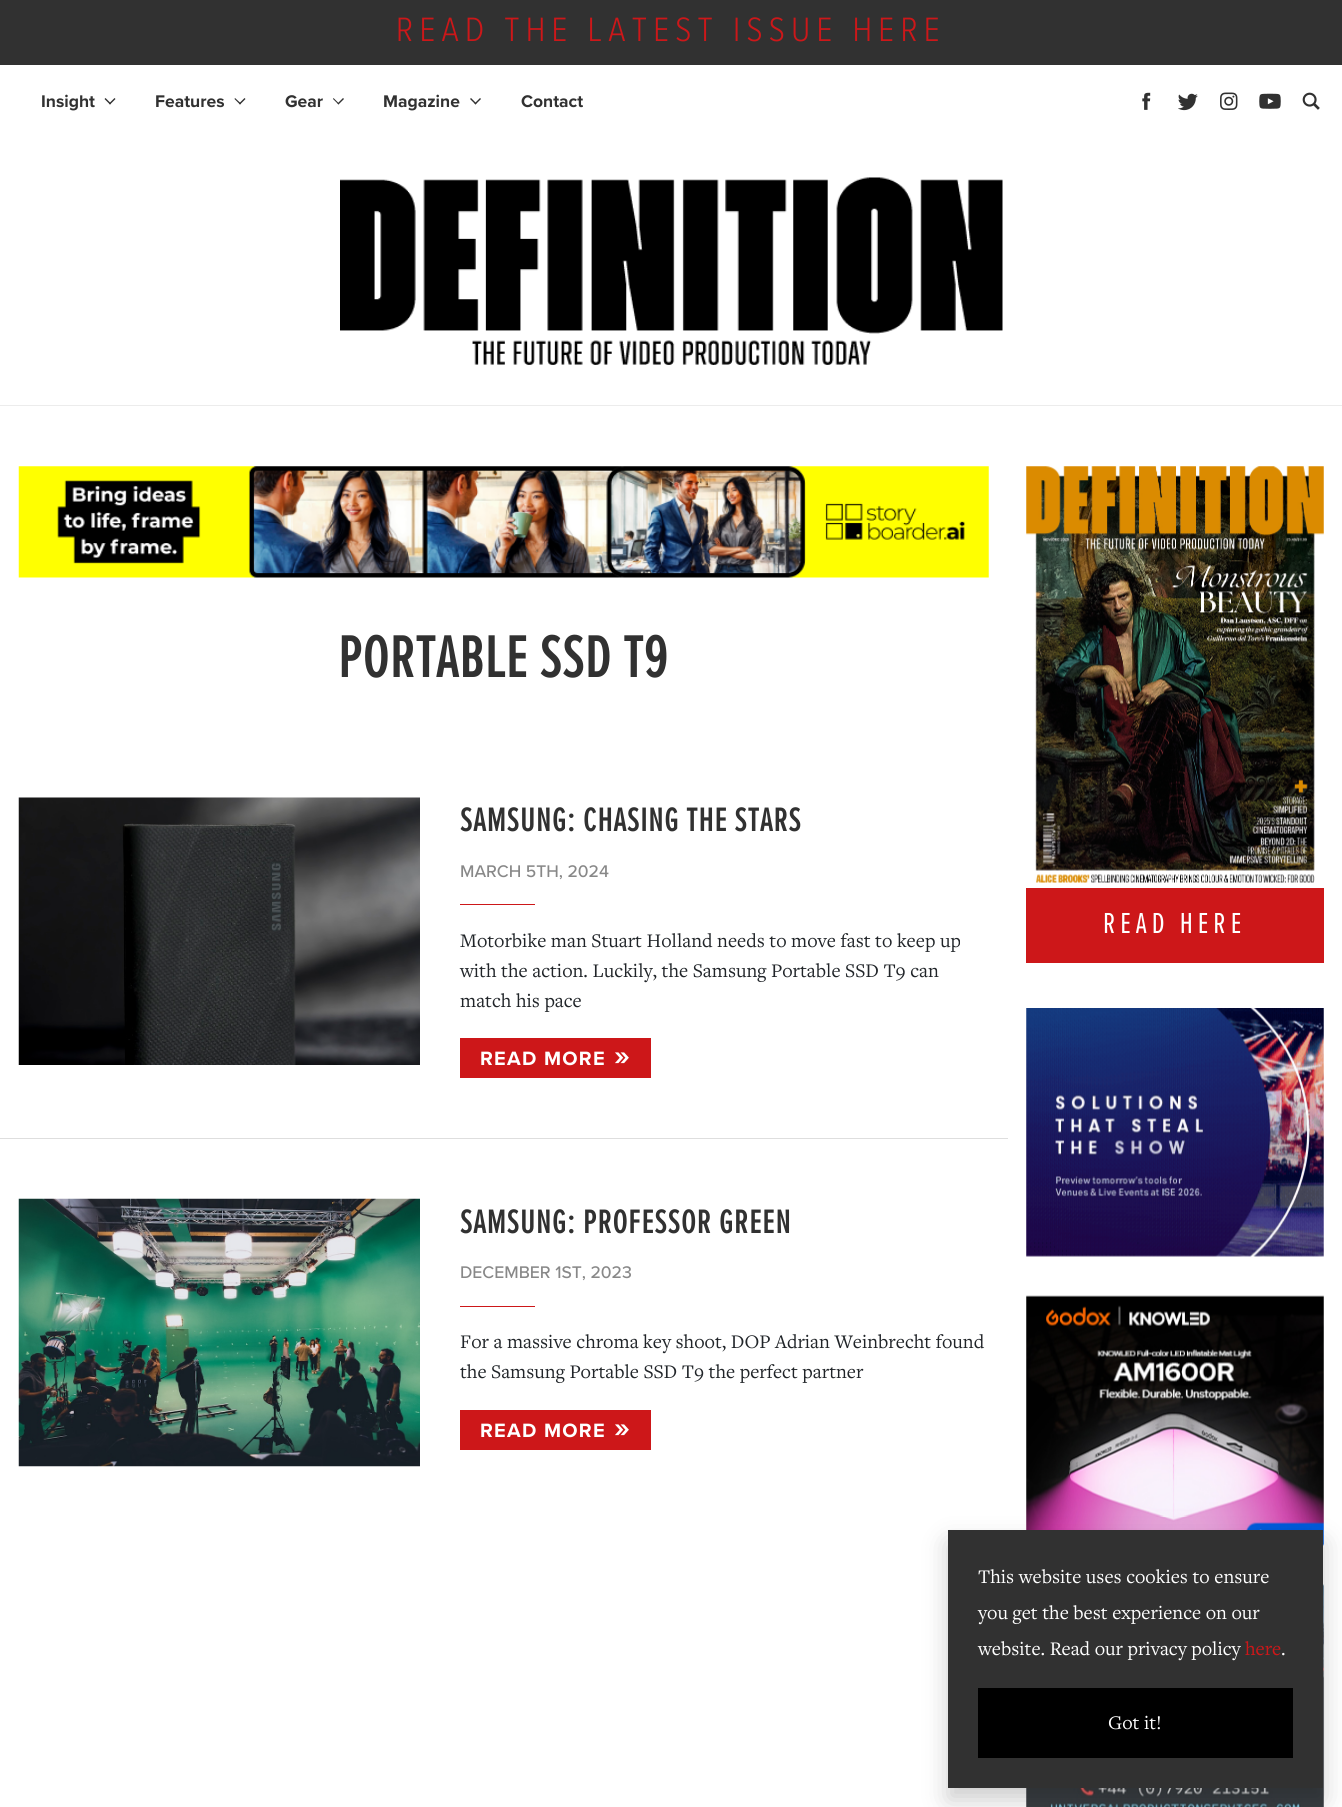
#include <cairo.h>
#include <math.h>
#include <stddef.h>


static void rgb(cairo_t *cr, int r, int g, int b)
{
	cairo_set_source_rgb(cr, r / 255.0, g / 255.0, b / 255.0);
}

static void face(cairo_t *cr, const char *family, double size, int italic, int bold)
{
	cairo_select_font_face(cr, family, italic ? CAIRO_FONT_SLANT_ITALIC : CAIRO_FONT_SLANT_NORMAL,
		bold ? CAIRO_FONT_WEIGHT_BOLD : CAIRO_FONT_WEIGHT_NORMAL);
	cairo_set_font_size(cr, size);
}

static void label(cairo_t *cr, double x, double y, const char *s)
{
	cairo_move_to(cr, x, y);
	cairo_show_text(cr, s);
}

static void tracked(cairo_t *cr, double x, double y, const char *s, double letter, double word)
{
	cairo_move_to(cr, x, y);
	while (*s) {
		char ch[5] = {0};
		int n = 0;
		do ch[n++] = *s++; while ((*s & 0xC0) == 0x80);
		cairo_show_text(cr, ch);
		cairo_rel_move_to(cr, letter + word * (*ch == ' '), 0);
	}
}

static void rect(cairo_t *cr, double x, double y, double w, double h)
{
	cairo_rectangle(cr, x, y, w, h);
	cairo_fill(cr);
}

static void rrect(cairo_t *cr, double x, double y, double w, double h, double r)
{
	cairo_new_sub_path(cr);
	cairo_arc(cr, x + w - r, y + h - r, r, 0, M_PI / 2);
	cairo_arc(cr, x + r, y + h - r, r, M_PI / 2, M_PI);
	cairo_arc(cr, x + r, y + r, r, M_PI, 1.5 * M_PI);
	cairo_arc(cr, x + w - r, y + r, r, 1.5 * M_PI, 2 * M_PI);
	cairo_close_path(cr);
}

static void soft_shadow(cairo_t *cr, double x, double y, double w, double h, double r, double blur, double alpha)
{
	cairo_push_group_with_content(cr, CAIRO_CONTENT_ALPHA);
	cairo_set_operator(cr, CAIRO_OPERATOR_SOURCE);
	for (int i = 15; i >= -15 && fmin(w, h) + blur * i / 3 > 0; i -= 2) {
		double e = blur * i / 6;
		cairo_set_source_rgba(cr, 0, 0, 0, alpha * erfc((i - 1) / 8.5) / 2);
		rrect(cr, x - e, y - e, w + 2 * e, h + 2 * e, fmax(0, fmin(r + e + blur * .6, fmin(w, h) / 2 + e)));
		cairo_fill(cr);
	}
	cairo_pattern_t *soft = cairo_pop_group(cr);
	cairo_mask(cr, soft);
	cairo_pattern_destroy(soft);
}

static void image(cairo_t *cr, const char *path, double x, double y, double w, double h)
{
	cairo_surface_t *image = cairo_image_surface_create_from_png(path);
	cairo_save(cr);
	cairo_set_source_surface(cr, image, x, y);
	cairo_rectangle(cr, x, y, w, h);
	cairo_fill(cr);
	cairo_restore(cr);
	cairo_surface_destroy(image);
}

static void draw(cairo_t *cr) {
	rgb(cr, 255, 255, 255);
	cairo_paint(cr);
	rgb(cr, 49, 49, 49);
	rect(cr, 0, 0, 1342, 65);
	face(cr, "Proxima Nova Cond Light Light", 35, 0, 0);
	rgb(cr, 205, 23, 25);
	tracked(cr, 396, 41, "READ THE LATEST ISSUE HERE", 6.25, 0);
	face(cr, "Proxima Nova", 17.5, 0, 1);
	rgb(cr, 49, 49, 49);
	label(cr, 41, 107, "Insight");
	cairo_new_path(cr);
	cairo_move_to(cr, 115.5, 99);
	cairo_line_to(cr, 110, 104.5);
	cairo_line_to(cr, 109, 103.5);
	cairo_line_to(cr, 114.5, 98);
	cairo_close_path(cr);
	cairo_fill(cr);
	cairo_new_path(cr);
	cairo_move_to(cr, 111, 103.5);
	cairo_line_to(cr, 110, 104.5);
	cairo_line_to(cr, 104.5, 99);
	cairo_line_to(cr, 105.5, 98);
	cairo_close_path(cr);
	cairo_fill(cr);
	label(cr, 155, 107, "Features");
	cairo_new_path(cr);
	cairo_move_to(cr, 245.5, 99);
	cairo_line_to(cr, 240, 104.5);
	cairo_line_to(cr, 239, 103.5);
	cairo_line_to(cr, 244.5, 98);
	cairo_close_path(cr);
	cairo_fill(cr);
	cairo_new_path(cr);
	cairo_move_to(cr, 241, 103.5);
	cairo_line_to(cr, 240, 104.5);
	cairo_line_to(cr, 234.5, 99);
	cairo_line_to(cr, 235, 98);
	cairo_close_path(cr);
	cairo_fill(cr);
	label(cr, 285, 107, "Gear");
	cairo_new_path(cr);
	cairo_move_to(cr, 344, 99);
	cairo_line_to(cr, 338.5, 104.5);
	cairo_line_to(cr, 337.5, 103.5);
	cairo_line_to(cr, 343, 98);
	cairo_close_path(cr);
	cairo_fill(cr);
	cairo_new_path(cr);
	cairo_move_to(cr, 339, 103.5);
	cairo_line_to(cr, 338.5, 104.5);
	cairo_line_to(cr, 333, 99);
	cairo_line_to(cr, 333.5, 98);
	cairo_close_path(cr);
	cairo_fill(cr);
	label(cr, 383, 107, "Magazine");
	cairo_new_path(cr);
	cairo_move_to(cr, 481, 99);
	cairo_line_to(cr, 475.5, 104.5);
	cairo_line_to(cr, 474.5, 103.5);
	cairo_line_to(cr, 480, 98);
	cairo_close_path(cr);
	cairo_fill(cr);
	cairo_new_path(cr);
	cairo_move_to(cr, 476.5, 103.5);
	cairo_line_to(cr, 475.5, 104.5);
	cairo_line_to(cr, 470, 99);
	cairo_line_to(cr, 471, 98);
	cairo_close_path(cr);
	cairo_fill(cr);
	label(cr, 521, 107, "Contact");
	image(cr, "image0.png", 1142, 92, 9, 18);
	image(cr, "image1.png", 1178, 93, 20, 18);
	image(cr, "image2.png", 1220, 92, 18, 18);
	image(cr, "image3.png", 1259, 93, 22, 16);
	image(cr, "image4.png", 1302, 92, 18, 18);
	image(cr, "image5.png", 340, 177, 663, 188);
	rgb(cr, 236, 236, 236);
	rect(cr, 0, 405, 1342, 1);
	image(cr, "image6.png", 18, 466, 971, 112);
	face(cr, "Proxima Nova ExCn", 60, 0, 1);
	rgb(cr, 49, 49, 49);
	tracked(cr, 338, 677, "PORTABLE SSD T9", 1.25, 0);
	image(cr, "image7.png", 18, 797, 402, 268);
	face(cr, "Proxima Nova ExCn", 33.75, 0, 1);
	tracked(cr, 460, 831, "SAMSUNG: CHASING THE STARS", 1.25, 0);
	face(cr, "Proxima Nova Medium", 17.5, 0, 0);
	rgb(cr, 136, 136, 136);
	label(cr, 460, 877, "MARCH 5TH, 2024");
	rgb(cr, 205, 23, 25);
	rect(cr, 460, 904, 75, 1);
	face(cr, "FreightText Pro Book", 20, 0, 0);
	rgb(cr, 33, 37, 41);
	label(cr, 460, 947, "Motorbike man Stuart Holland needs to move fast to keep up");
	label(cr, 460, 977, "with the action. Luckily, the Samsung Portable SSD T9 can");
	label(cr, 460, 1007, "match his pace");
	rgb(cr, 205, 23, 25);
	rect(cr, 460, 1038, 191, 40);
	face(cr, "Proxima Nova", 20, 0, 1);
	rgb(cr, 255, 255, 255);
	tracked(cr, 480, 1065, "READ MORE", 1.25, 0);
	face(cr, "Proxima Nova", 30, 0, 1);
	tracked(cr, 614, 1065, "»", 1.25, 0);
	rgb(cr, 222, 222, 222);
	rect(cr, 0, 1138, 1008, 1);
	image(cr, "image8.png", 18, 1198, 402, 269);
	face(cr, "Proxima Nova ExCn", 33.75, 0, 1);
	rgb(cr, 49, 49, 49);
	tracked(cr, 460, 1233, "SAMSUNG: PROFESSOR GREEN", 1.25, 0);
	face(cr, "Proxima Nova Medium", 17.5, 0, 0);
	rgb(cr, 136, 136, 136);
	label(cr, 460, 1278, "DECEMBER 1ST, 2023");
	rgb(cr, 205, 23, 25);
	rect(cr, 460, 1306, 75, 1);
	face(cr, "FreightText Pro Book", 20, 0, 0);
	rgb(cr, 33, 37, 41);
	label(cr, 460, 1348, "For a massive chroma key shoot, DOP Adrian Weinbrecht found");
	label(cr, 460, 1378, "the Samsung Portable SSD T9 the perfect partner");
	rgb(cr, 205, 23, 25);
	rect(cr, 460, 1410, 191, 40);
	face(cr, "Proxima Nova", 20, 0, 1);
	rgb(cr, 255, 255, 255);
	tracked(cr, 480, 1437, "READ MORE", 1.25, 0);
	face(cr, "Proxima Nova", 30, 0, 1);
	tracked(cr, 614, 1437, "»", 1.25, 0);
	image(cr, "image9.png", 1026, 466, 298, 417);
	rgb(cr, 205, 23, 25);
	rect(cr, 1026, 888, 298, 75);
	face(cr, "Proxima Nova ExCn", 30, 0, 0);
	rgb(cr, 255, 255, 255);
	tracked(cr, 1103, 933, "READ HERE", 5, 0);
	image(cr, "image10.png", 1026, 1008, 298, 249);
	image(cr, "image11.png", 1026, 1295, 298, 251);
	image(cr, "image12.png", 1026, 1584, 298, 223);
	rgb(cr, 0, 0, 0);
	soft_shadow(cr, 948, 1543, 375, 257, 0, 12.5, 0.2);
	rgb(cr, 49, 49, 49);
	rect(cr, 948, 1530, 375, 258);
	face(cr, "FreightText Pro Book", 20, 0, 0);
	rgb(cr, 255, 255, 255);
	label(cr, 978, 1583, "This website uses cookies to ensure");
	label(cr, 978, 1619, "you get the best experience on our");
	label(cr, 978, 1655, "website. Read our privacy policy");
	rgb(cr, 205, 23, 25);
	label(cr, 1245, 1655, "here");
	rgb(cr, 255, 255, 255);
	label(cr, 1281, 1655, ".");
	rgb(cr, 0, 0, 0);
	rect(cr, 978, 1688, 315, 70);
	rgb(cr, 255, 255, 255);
	label(cr, 1108, 1729, "Got it!");
}

int main(void) {
	cairo_surface_t *surface = cairo_image_surface_create(CAIRO_FORMAT_RGB24, 1342, 1807);
	cairo_t *cr = cairo_create(surface);
	cairo_font_options_t *options = cairo_font_options_create();
	cairo_font_options_set_hint_metrics(options, CAIRO_HINT_METRICS_OFF);
	cairo_font_options_set_hint_style(options, CAIRO_HINT_STYLE_NONE);
	cairo_set_font_options(cr, options);
	cairo_set_miter_limit(cr, 4);
	draw(cr);
	cairo_surface_write_to_png(surface, "render.png");
	cairo_font_options_destroy(options);
	cairo_destroy(cr);
	cairo_surface_destroy(surface);
	return 0;
}
